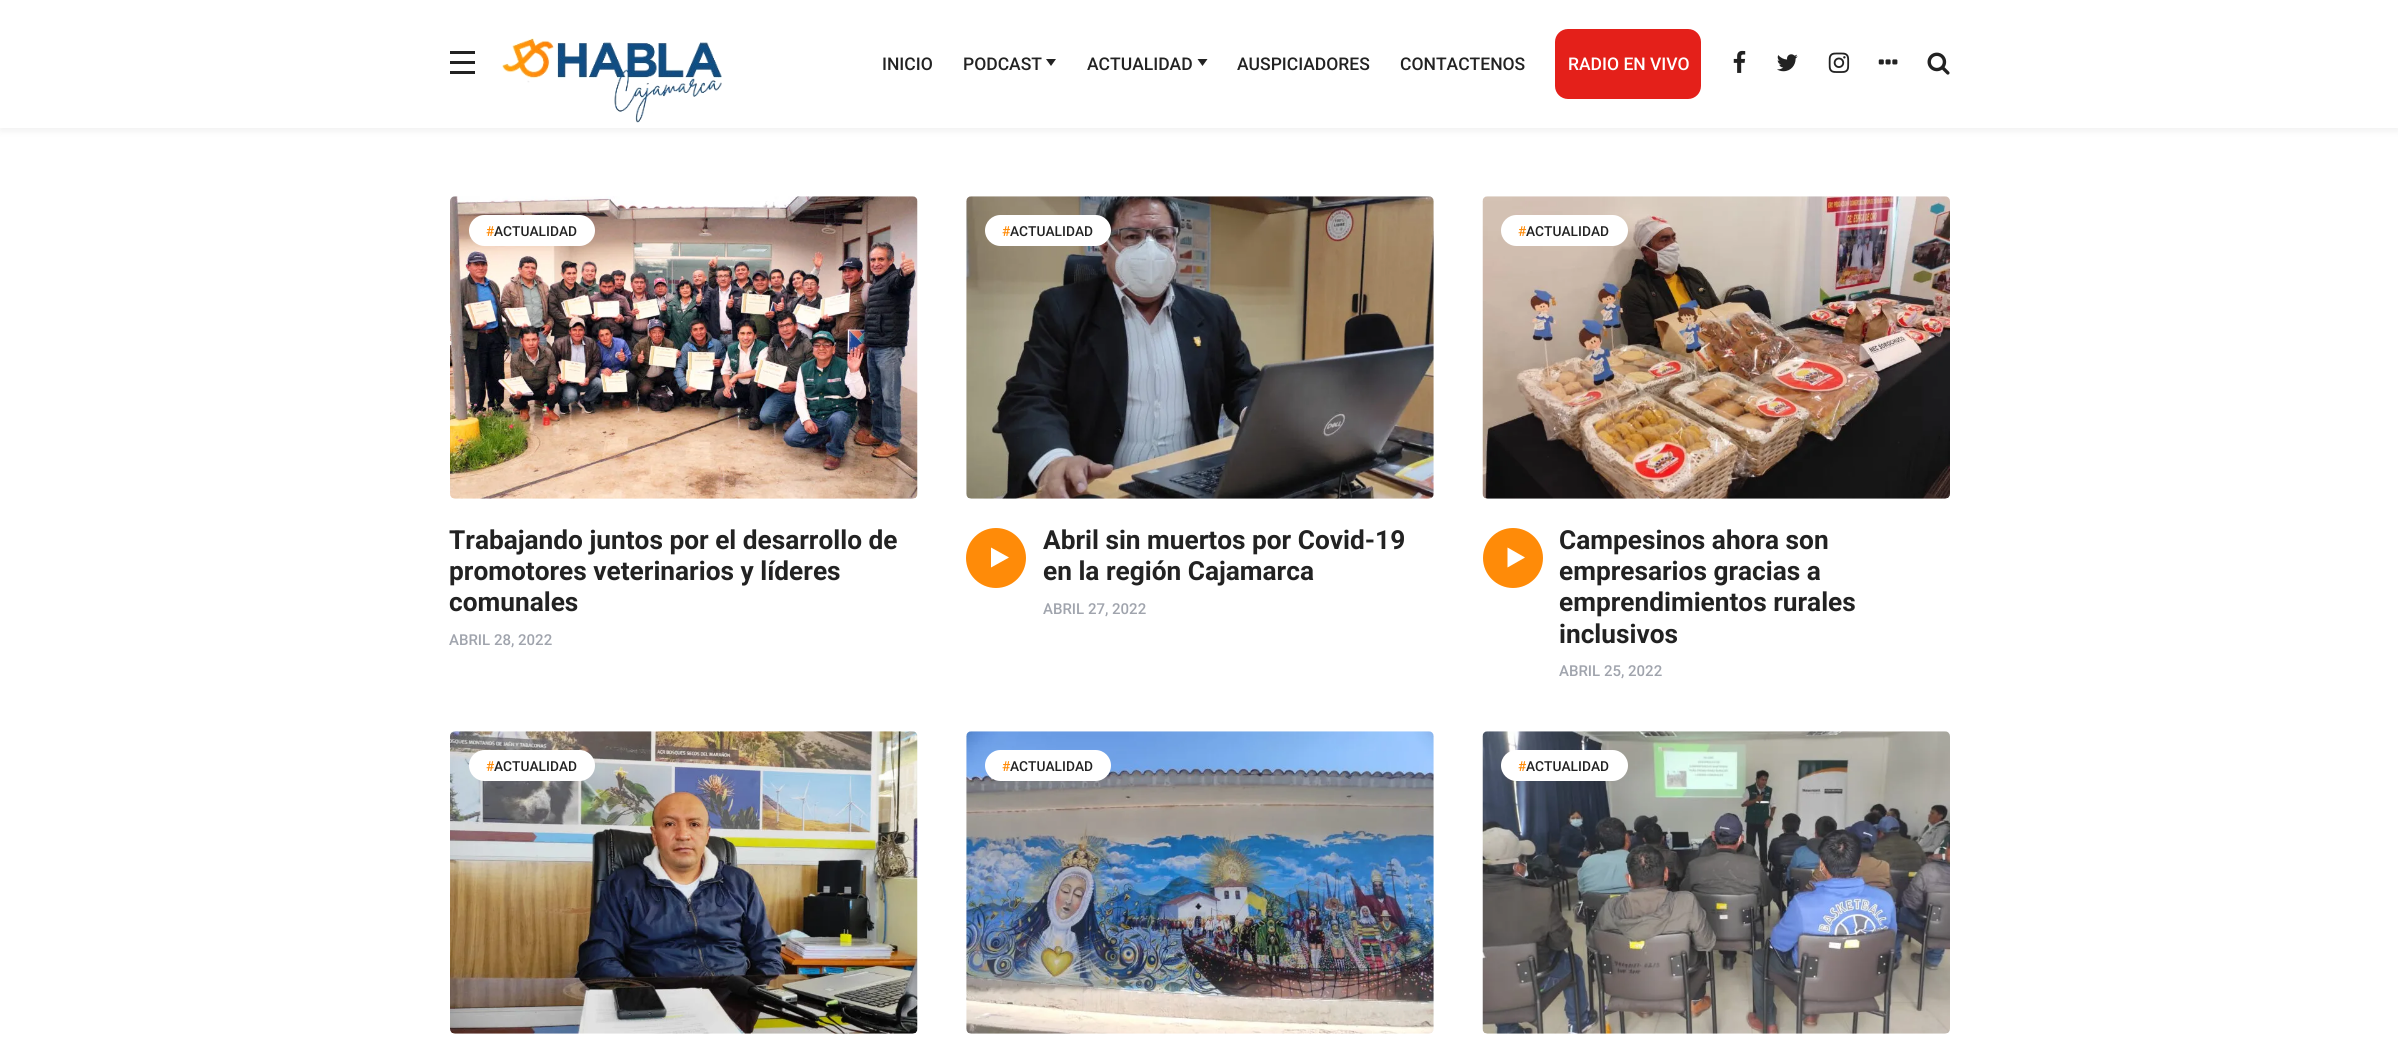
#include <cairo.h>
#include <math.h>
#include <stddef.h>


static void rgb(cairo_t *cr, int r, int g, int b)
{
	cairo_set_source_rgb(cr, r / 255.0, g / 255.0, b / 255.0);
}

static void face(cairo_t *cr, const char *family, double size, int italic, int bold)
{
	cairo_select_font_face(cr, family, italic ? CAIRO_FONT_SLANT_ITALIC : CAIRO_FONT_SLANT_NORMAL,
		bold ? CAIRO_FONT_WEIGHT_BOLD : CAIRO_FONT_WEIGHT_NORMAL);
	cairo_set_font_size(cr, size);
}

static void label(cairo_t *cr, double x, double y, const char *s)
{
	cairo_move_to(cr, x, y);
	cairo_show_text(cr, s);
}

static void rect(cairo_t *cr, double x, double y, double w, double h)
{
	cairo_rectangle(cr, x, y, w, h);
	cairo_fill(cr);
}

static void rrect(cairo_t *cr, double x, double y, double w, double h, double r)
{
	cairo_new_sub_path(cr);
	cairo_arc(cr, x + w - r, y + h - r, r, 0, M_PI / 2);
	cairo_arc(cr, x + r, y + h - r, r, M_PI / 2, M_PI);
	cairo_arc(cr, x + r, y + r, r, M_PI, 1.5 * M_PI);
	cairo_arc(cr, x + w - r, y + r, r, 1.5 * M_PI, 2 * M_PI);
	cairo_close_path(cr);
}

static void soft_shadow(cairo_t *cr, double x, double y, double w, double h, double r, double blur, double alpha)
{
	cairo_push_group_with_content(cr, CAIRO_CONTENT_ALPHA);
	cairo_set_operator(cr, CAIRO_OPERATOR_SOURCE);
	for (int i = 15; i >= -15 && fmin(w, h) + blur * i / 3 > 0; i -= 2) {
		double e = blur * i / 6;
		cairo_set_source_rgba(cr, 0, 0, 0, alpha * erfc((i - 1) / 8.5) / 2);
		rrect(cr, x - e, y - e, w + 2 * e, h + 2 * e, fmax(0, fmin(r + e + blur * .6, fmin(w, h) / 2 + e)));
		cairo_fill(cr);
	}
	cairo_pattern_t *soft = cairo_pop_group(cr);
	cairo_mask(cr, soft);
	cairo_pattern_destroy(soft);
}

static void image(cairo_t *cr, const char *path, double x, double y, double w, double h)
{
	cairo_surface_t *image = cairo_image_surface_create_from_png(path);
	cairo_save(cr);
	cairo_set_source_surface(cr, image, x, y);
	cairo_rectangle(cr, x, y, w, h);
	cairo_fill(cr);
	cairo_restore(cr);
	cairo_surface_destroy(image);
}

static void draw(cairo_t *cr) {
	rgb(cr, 255, 255, 255);
	cairo_paint(cr);
	rgb(cr, 0, 0, 0);
	soft_shadow(cr, 0, 4, 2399, 127, 0, 4, 0.06);
	rgb(cr, 255, 255, 255);
	rect(cr, 0, 0, 2398, 128);
	rgb(cr, 34, 34, 34);
	rect(cr, 450, 51, 25, 3);
	rect(cr, 450, 61, 25, 3);
	rect(cr, 450, 71, 25, 3);
	image(cr, "image0.png", 502, 38, 220, 85);
	face(cr, "Roboto Medium", 17.5, 0, 0);
	label(cr, 882, 70, "INICIO");
	label(cr, 963, 70, "PODCAST");
	cairo_new_path(cr);
	cairo_move_to(cr, 1046, 59);
	cairo_line_to(cr, 1056, 59);
	cairo_line_to(cr, 1051, 66);
	cairo_close_path(cr);
	cairo_fill(cr);
	label(cr, 1087, 70, "ACTUALIDAD");
	cairo_new_path(cr);
	cairo_move_to(cr, 1197.5, 59);
	cairo_line_to(cr, 1207.5, 59);
	cairo_line_to(cr, 1202.5, 66);
	cairo_close_path(cr);
	cairo_fill(cr);
	label(cr, 1237, 70, "AUSPICIADORES");
	label(cr, 1400, 70, "CONTACTENOS");
	rgb(cr, 228, 32, 26);
	rrect(cr, 1555, 29, 146, 70, 13);
	cairo_fill(cr);
	rgb(cr, 255, 255, 255);
	label(cr, 1568, 70, "RADIO EN VIVO");
	image(cr, "image1.png", 1733, 50, 13, 23);
	image(cr, "image2.png", 1777, 54, 21, 18);
	image(cr, "image3.png", 1828, 52, 22, 21);
	image(cr, "image4.png", 1878, 59, 20, 6);
	image(cr, "image5.png", 1927, 52, 23, 23);
	image(cr, "image6.png", 450, 196, 468, 303);
	rrect(cr, 469, 215, 126, 31, 15.5);
	cairo_fill(cr);
	face(cr, "Roboto Medium", 13.75, 0, 0);
	rgb(cr, 255, 139, 8);
	label(cr, 486, 236, "#");
	rgb(cr, 34, 34, 34);
	label(cr, 494, 236, "ACTUALIDAD");
	face(cr, "Roboto", 26.25, 0, 1);
	label(cr, 449, 549, "Trabajando juntos por el desarrollo de");
	label(cr, 449, 580, "promotores veterinarios y líderes");
	label(cr, 449, 611, "comunales");
	face(cr, "Roboto Medium", 15, 0, 0);
	rgb(cr, 160, 164, 173);
	label(cr, 449, 645, "ABRIL 28, 2022");
	image(cr, "image7.png", 966, 196, 468, 303);
	rgb(cr, 255, 255, 255);
	rrect(cr, 985, 215, 126, 31, 15.5);
	cairo_fill(cr);
	face(cr, "Roboto Medium", 13.75, 0, 0);
	rgb(cr, 255, 139, 8);
	label(cr, 1002, 236, "#");
	rgb(cr, 34, 34, 34);
	label(cr, 1010, 236, "ACTUALIDAD");
	rgb(cr, 255, 139, 8);
	cairo_new_path(cr);
	cairo_arc(cr, 996, 558, 30, 0, 2 * M_PI);
	cairo_fill(cr);
	rgb(cr, 255, 255, 255);
	cairo_new_path(cr);
	cairo_move_to(cr, 991, 567.5);
	cairo_line_to(cr, 991, 547.5);
	cairo_line_to(cr, 1009, 557.5);
	cairo_close_path(cr);
	cairo_fill(cr);
	face(cr, "Roboto", 26.25, 0, 1);
	rgb(cr, 34, 34, 34);
	label(cr, 1043, 549, "Abril sin muertos por Covid-19");
	label(cr, 1043, 580, "en la región Cajamarca");
	face(cr, "Roboto Medium", 15, 0, 0);
	rgb(cr, 160, 164, 173);
	label(cr, 1043, 614, "ABRIL 27, 2022");
	image(cr, "image8.png", 1482, 196, 468, 303);
	rgb(cr, 255, 255, 255);
	rrect(cr, 1501, 215, 127, 31, 15.5);
	cairo_fill(cr);
	face(cr, "Roboto Medium", 13.75, 0, 0);
	rgb(cr, 255, 139, 8);
	label(cr, 1518, 236, "#");
	rgb(cr, 34, 34, 34);
	label(cr, 1526, 236, "ACTUALIDAD");
	rgb(cr, 255, 139, 8);
	cairo_new_path(cr);
	cairo_arc(cr, 1513, 558, 30, 0, 2 * M_PI);
	cairo_fill(cr);
	rgb(cr, 255, 255, 255);
	cairo_new_path(cr);
	cairo_move_to(cr, 1507.5, 567.5);
	cairo_line_to(cr, 1507.5, 547.5);
	cairo_line_to(cr, 1525, 557.5);
	cairo_close_path(cr);
	cairo_fill(cr);
	face(cr, "Roboto", 26.25, 0, 1);
	rgb(cr, 34, 34, 34);
	label(cr, 1559, 549, "Campesinos ahora son");
	label(cr, 1559, 580, "empresarios gracias a");
	label(cr, 1559, 611, "emprendimientos rurales");
	label(cr, 1559, 643, "inclusivos");
	face(cr, "Roboto Medium", 15, 0, 0);
	rgb(cr, 160, 164, 173);
	label(cr, 1559, 676, "ABRIL 25, 2022");
	image(cr, "image9.png", 450, 731, 468, 303);
	rgb(cr, 255, 255, 255);
	rrect(cr, 469, 750, 126, 31, 15.5);
	cairo_fill(cr);
	face(cr, "Roboto Medium", 13.75, 0, 0);
	rgb(cr, 255, 139, 8);
	label(cr, 486, 771, "#");
	rgb(cr, 34, 34, 34);
	label(cr, 494, 771, "ACTUALIDAD");
	image(cr, "image10.png", 966, 731, 468, 303);
	rgb(cr, 255, 255, 255);
	rrect(cr, 985, 750, 126, 31, 15.5);
	cairo_fill(cr);
	rgb(cr, 255, 139, 8);
	label(cr, 1002, 771, "#");
	rgb(cr, 34, 34, 34);
	label(cr, 1010, 771, "ACTUALIDAD");
	image(cr, "image11.png", 1482, 731, 468, 303);
	rgb(cr, 255, 255, 255);
	rrect(cr, 1501, 750, 127, 31, 15.5);
	cairo_fill(cr);
	rgb(cr, 255, 139, 8);
	label(cr, 1518, 771, "#");
	rgb(cr, 34, 34, 34);
	label(cr, 1526, 771, "ACTUALIDAD");
}

int main(void) {
	cairo_surface_t *surface = cairo_image_surface_create(CAIRO_FORMAT_RGB24, 2398, 1045);
	cairo_t *cr = cairo_create(surface);
	cairo_font_options_t *options = cairo_font_options_create();
	cairo_font_options_set_hint_metrics(options, CAIRO_HINT_METRICS_OFF);
	cairo_font_options_set_hint_style(options, CAIRO_HINT_STYLE_NONE);
	cairo_set_font_options(cr, options);
	cairo_set_miter_limit(cr, 4);
	draw(cr);
	cairo_surface_write_to_png(surface, "render.png");
	cairo_font_options_destroy(options);
	cairo_destroy(cr);
	cairo_surface_destroy(surface);
	return 0;
}
